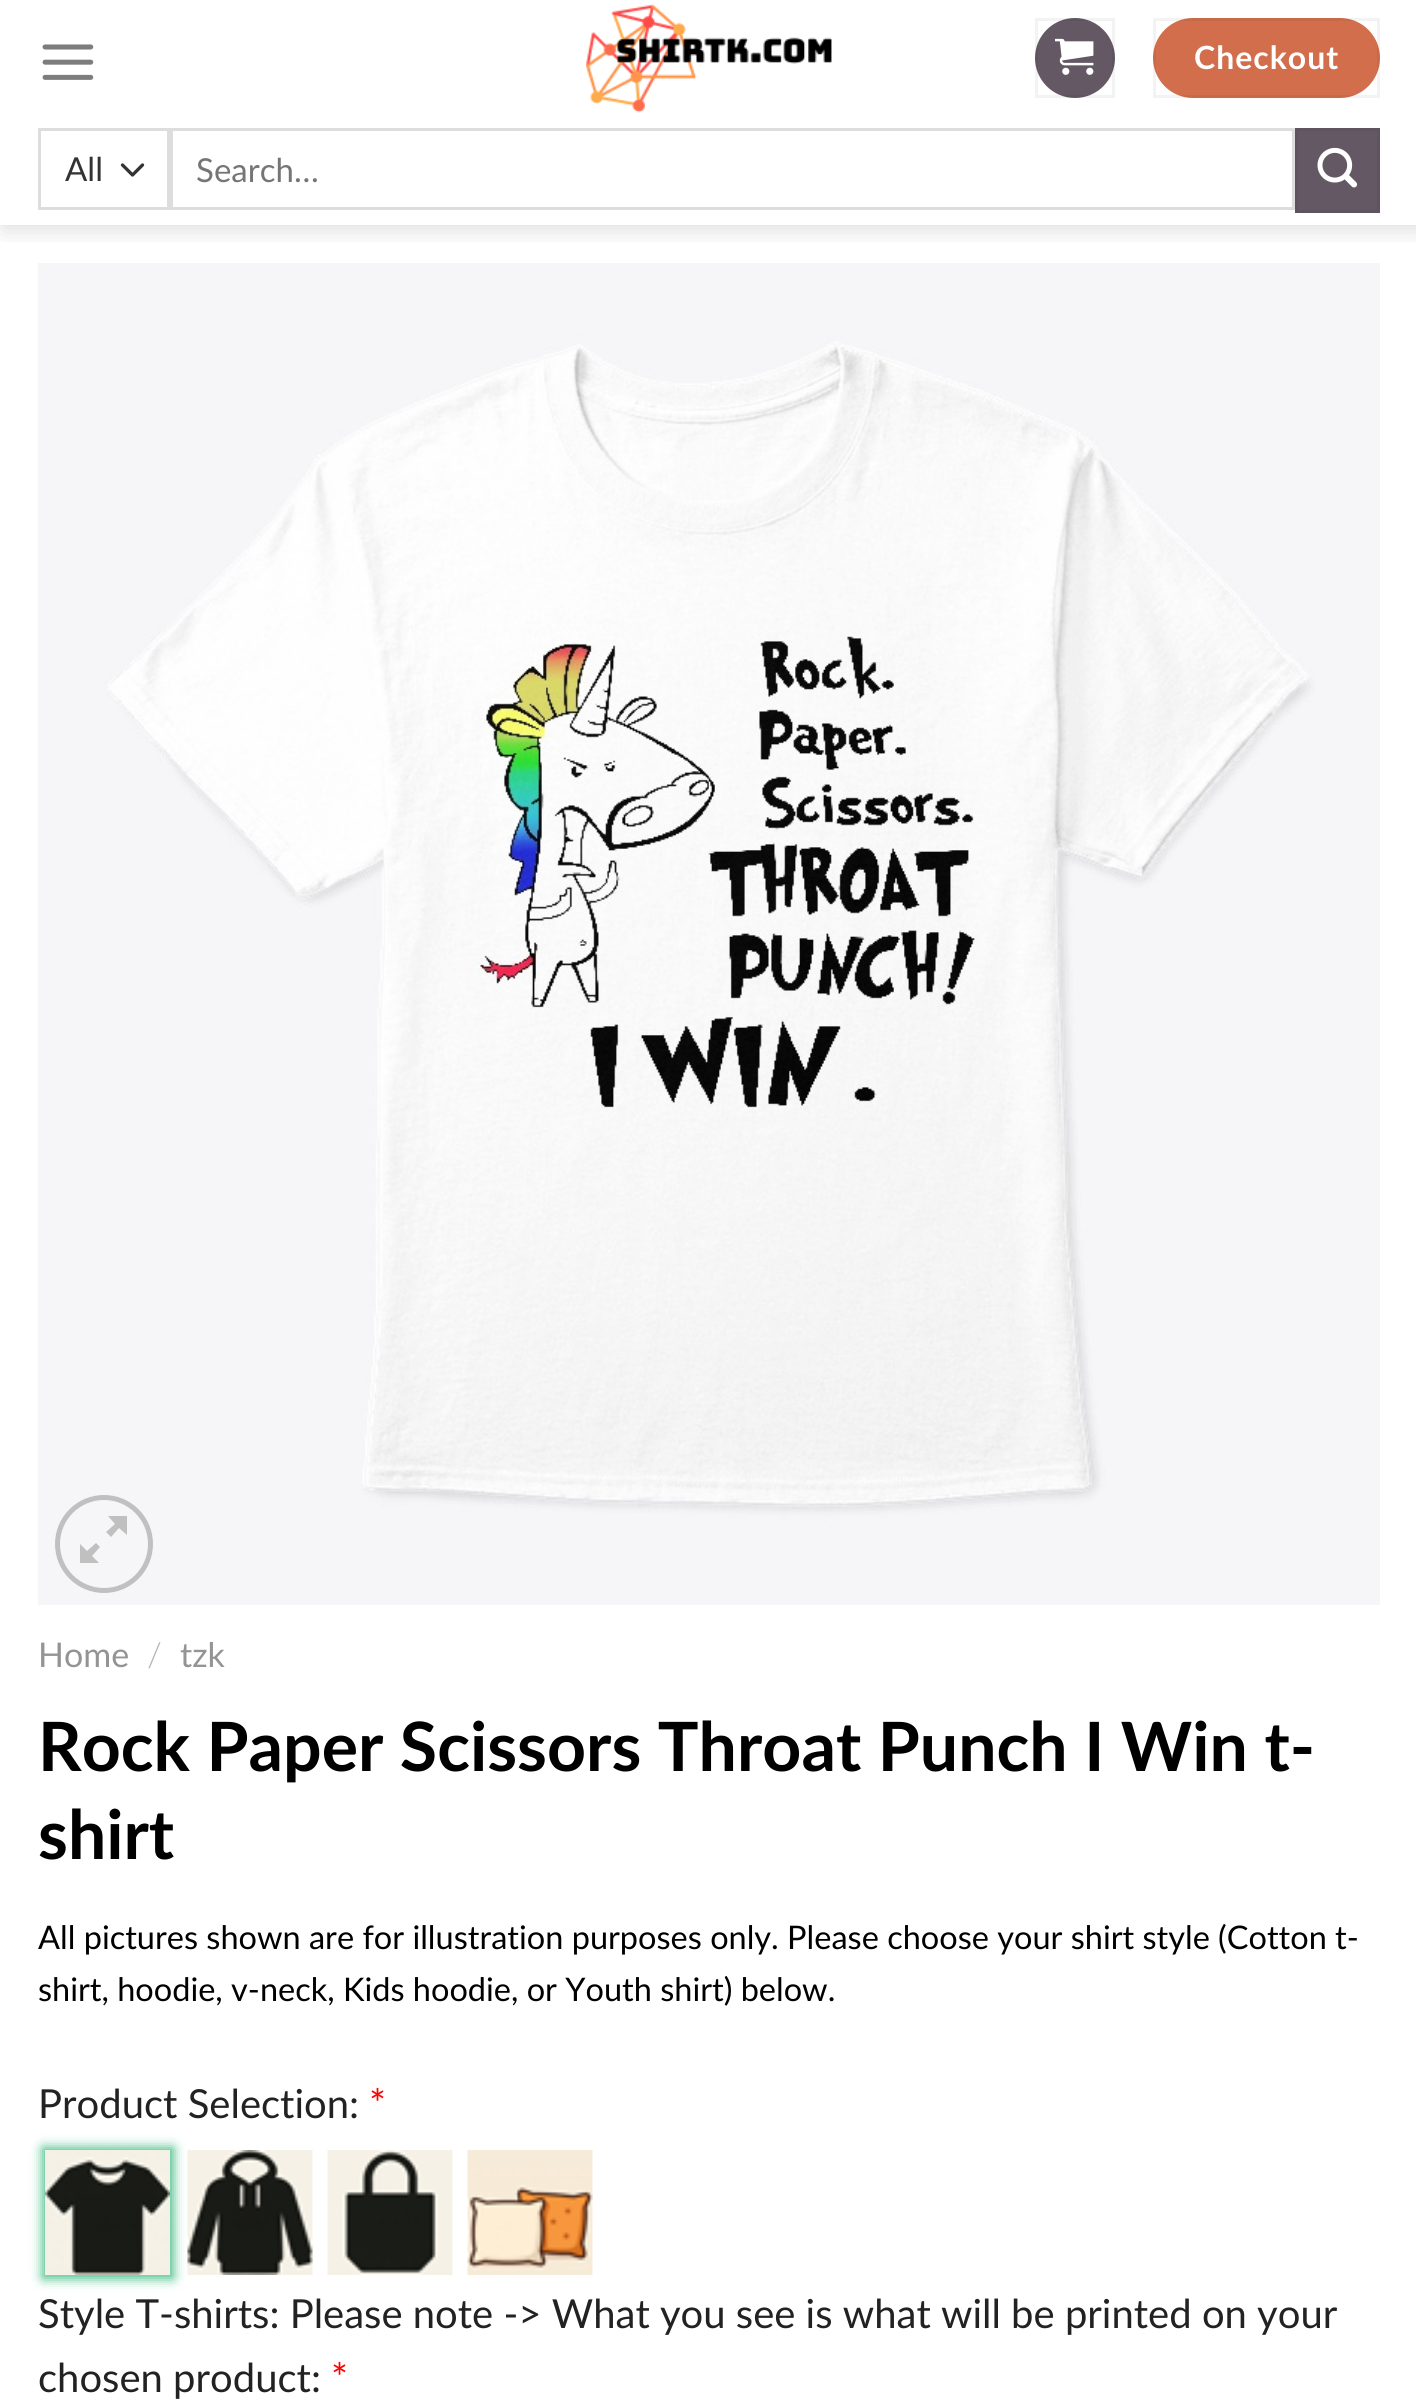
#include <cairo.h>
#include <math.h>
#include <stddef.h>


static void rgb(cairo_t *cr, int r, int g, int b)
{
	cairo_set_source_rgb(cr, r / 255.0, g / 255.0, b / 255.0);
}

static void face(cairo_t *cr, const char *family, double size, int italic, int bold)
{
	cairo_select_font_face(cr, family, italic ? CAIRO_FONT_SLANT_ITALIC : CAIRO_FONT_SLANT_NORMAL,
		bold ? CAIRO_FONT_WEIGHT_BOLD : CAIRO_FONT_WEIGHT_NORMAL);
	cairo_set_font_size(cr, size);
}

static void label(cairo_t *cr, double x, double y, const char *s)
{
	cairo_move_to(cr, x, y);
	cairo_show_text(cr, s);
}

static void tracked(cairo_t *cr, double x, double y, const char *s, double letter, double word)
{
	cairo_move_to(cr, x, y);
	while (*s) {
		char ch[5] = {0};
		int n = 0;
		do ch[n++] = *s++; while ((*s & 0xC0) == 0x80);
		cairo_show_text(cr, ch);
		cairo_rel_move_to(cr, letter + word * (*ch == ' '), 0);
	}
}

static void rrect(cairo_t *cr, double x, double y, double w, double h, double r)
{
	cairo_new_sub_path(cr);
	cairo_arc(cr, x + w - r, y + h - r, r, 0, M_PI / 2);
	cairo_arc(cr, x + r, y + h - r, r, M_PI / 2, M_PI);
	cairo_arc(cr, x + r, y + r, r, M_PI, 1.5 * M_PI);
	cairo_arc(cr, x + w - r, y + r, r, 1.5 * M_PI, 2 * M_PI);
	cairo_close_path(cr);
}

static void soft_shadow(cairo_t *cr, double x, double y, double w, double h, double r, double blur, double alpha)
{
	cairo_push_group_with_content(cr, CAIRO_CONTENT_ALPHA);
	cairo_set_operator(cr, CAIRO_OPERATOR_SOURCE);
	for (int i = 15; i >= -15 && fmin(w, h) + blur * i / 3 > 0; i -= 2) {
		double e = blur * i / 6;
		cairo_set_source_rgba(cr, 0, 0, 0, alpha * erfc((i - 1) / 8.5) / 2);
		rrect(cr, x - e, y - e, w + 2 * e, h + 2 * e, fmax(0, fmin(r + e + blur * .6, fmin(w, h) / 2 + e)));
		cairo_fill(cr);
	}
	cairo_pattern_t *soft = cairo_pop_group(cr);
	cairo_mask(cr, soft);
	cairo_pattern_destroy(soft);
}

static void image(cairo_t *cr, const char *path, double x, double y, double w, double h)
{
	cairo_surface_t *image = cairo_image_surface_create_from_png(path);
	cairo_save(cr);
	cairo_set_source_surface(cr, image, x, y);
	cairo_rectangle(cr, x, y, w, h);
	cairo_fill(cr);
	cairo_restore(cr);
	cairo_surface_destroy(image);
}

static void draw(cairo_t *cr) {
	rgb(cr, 255, 255, 255);
	cairo_paint(cr);
	image(cr, "image4.png", 38, 263, 1342, 1342);
	cairo_save(cr);
	cairo_rectangle(cr, 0, 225, 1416, 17);
	cairo_clip(cr);
	rgb(cr, 0, 0, 0);
	soft_shadow(cr, 3, 3, 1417, 225, 0, 12.5, 0.15);
	cairo_restore(cr);
	image(cr, "image0.png", 42, 44, 52, 36);
	image(cr, "image1.png", 586, 4, 246, 109);
	rgb(cr, 99, 88, 100);
	cairo_arc(cr, 1075, 58, 40, 0, 2 * M_PI);
	cairo_fill(cr);
	cairo_rectangle(cr, 1036.5, 19.5, 77, 77);
	cairo_set_source_rgba(cr, 0, 0, 0, 0.05);
	cairo_set_line_width(cr, 3);
	cairo_stroke(cr);
	image(cr, "image2.png", 1055, 38, 39, 37);
	rgb(cr, 210, 110, 75);
	rrect(cr, 1153, 18, 227, 80, 40);
	cairo_fill(cr);
	cairo_rectangle(cr, 1154.5, 19.5, 224, 77);
	cairo_set_source_rgba(cr, 0, 0, 0, 0.05);
	cairo_stroke(cr);
	face(cr, "Lato", 32, 0, 1);
	rgb(cr, 255, 255, 255);
	tracked(cr, 1194, 69, "Checkout", 1, 0);
	cairo_new_path(cr);
	cairo_move_to(cr, 122.5, 165);
	cairo_line_to(cr, 132.5, 175);
	cairo_line_to(cr, 142.5, 165);
	rgb(cr, 51, 51, 51);
	cairo_set_line_width(cr, 3.3);
	cairo_set_line_cap(cr, CAIRO_LINE_CAP_ROUND);
	cairo_set_line_join(cr, CAIRO_LINE_JOIN_ROUND);
	cairo_stroke(cr);
	cairo_rectangle(cr, 39.5, 129.5, 129, 79);
	rgb(cr, 221, 221, 221);
	cairo_set_line_width(cr, 3);
	cairo_set_line_cap(cr, CAIRO_LINE_CAP_BUTT);
	cairo_set_line_join(cr, CAIRO_LINE_JOIN_MITER);
	cairo_stroke(cr);
	face(cr, "Lato", 33, 0, 0);
	rgb(cr, 51, 51, 51);
	label(cr, 65, 181, "All");
	cairo_rectangle(cr, 171.5, 129.5, 1122, 79);
	rgb(cr, 221, 221, 221);
	cairo_stroke(cr);
	rgb(cr, 117, 117, 117);
	label(cr, 196, 182, "Search…");
	rgb(cr, 99, 88, 100);
	cairo_rectangle(cr, 1296.5, 129.5, 82, 82);
	cairo_fill_preserve(cr);
	rgb(cr, 94, 84, 95);
	cairo_stroke(cr);
	image(cr, "image3.png", 1317, 147, 41, 41);
	cairo_arc(cr, 104, 1544, 46.5, 0, 2 * M_PI);
	rgb(cr, 192, 192, 192);
	cairo_set_line_width(cr, 5);
	cairo_stroke(cr);
	cairo_new_path(cr);
	cairo_move_to(cr, 127, 1516);
	cairo_line_to(cr, 127, 1535);
	cairo_line_to(cr, 119, 1528);
	cairo_line_to(cr, 111, 1537);
	cairo_line_to(cr, 106, 1532);
	cairo_line_to(cr, 115, 1524);
	cairo_line_to(cr, 108, 1516);
	cairo_close_path(cr);
	cairo_move_to(cr, 100, 1547);
	cairo_line_to(cr, 92, 1556);
	cairo_line_to(cr, 99, 1563);
	cairo_line_to(cr, 80, 1563);
	cairo_line_to(cr, 80, 1544);
	cairo_line_to(cr, 87, 1551);
	cairo_line_to(cr, 96, 1543);
	cairo_close_path(cr);
	cairo_fill(cr);
	face(cr, "Lato", 34, 0, 0);
	rgb(cr, 148, 148, 148);
	label(cr, 38, 1667, "Home");
	face(cr, "Lato Light", 34, 0, 0);
	rgb(cr, 178, 178, 178);
	label(cr, 147, 1667, "/");
	face(cr, "Lato", 34, 0, 0);
	rgb(cr, 148, 148, 148);
	label(cr, 180, 1667, "tzk");
	face(cr, "Lato", 68, 0, 1);
	rgb(cr, 0, 0, 0);
	label(cr, 38, 1771, "Rock Paper Scissors Throat Punch I Win t-");
	label(cr, 38, 1859, "shirt");
	face(cr, "Lato", 32.5, 0, 0);
	label(cr, 38, 1949, "All pictures shown are for illustration purposes only. Please choose your shirt style (Cotton t-");
	label(cr, 38, 2001, "shirt, hoodie, v-neck, Kids hoodie, or Youth shirt) below.");
	face(cr, "Lato", 40, 0, 0);
	rgb(cr, 34, 34, 34);
	label(cr, 38, 2118, "Product Selection:");
	rgb(cr, 255, 0, 0);
	label(cr, 369, 2118, "*");
	rgb(cr, 54, 185, 126);
	soft_shadow(cr, 43, 2148, 130, 130, 0, 6, 1);
	image(cr, "image5.png", 45, 2150, 125, 125);
	image(cr, "image6.png", 187, 2150, 126, 125);
	image(cr, "image7.png", 327, 2150, 126, 125);
	image(cr, "image8.png", 467, 2150, 126, 125);
	rgb(cr, 34, 34, 34);
	label(cr, 38, 2328, "Style T-shirts: Please note -> What you see is what will be printed on your");
	label(cr, 38, 2392, "chosen product:");
	rgb(cr, 255, 0, 0);
	label(cr, 331, 2392, "*");
}

int main(void) {
	cairo_surface_t *surface = cairo_image_surface_create(CAIRO_FORMAT_RGB24, 1416, 2400);
	cairo_t *cr = cairo_create(surface);
	cairo_font_options_t *options = cairo_font_options_create();
	cairo_font_options_set_hint_metrics(options, CAIRO_HINT_METRICS_OFF);
	cairo_font_options_set_hint_style(options, CAIRO_HINT_STYLE_NONE);
	cairo_set_font_options(cr, options);
	cairo_set_miter_limit(cr, 4);
	draw(cr);
	cairo_surface_write_to_png(surface, "render.png");
	cairo_font_options_destroy(options);
	cairo_destroy(cr);
	cairo_surface_destroy(surface);
	return 0;
}
